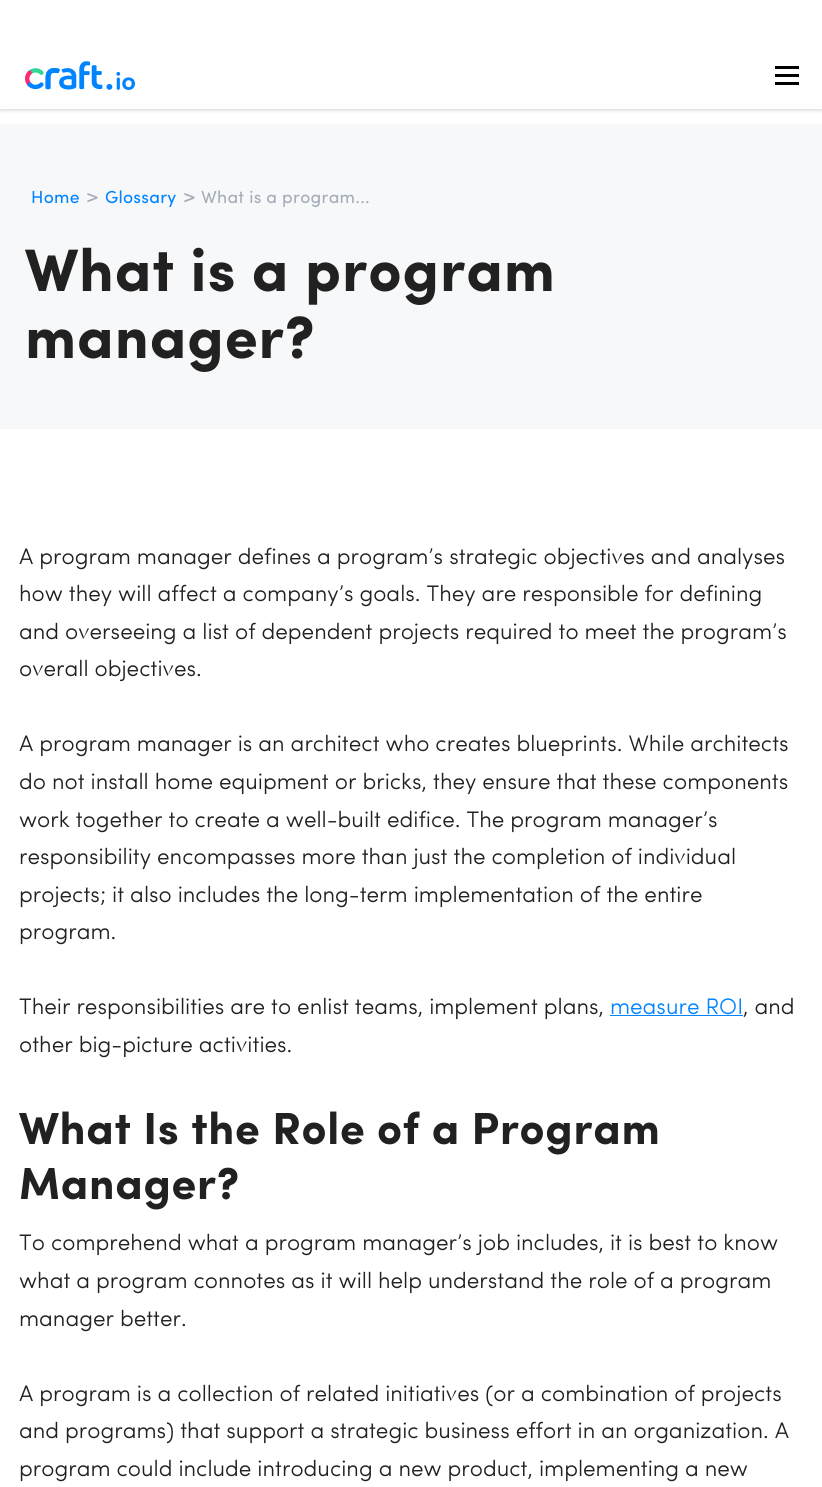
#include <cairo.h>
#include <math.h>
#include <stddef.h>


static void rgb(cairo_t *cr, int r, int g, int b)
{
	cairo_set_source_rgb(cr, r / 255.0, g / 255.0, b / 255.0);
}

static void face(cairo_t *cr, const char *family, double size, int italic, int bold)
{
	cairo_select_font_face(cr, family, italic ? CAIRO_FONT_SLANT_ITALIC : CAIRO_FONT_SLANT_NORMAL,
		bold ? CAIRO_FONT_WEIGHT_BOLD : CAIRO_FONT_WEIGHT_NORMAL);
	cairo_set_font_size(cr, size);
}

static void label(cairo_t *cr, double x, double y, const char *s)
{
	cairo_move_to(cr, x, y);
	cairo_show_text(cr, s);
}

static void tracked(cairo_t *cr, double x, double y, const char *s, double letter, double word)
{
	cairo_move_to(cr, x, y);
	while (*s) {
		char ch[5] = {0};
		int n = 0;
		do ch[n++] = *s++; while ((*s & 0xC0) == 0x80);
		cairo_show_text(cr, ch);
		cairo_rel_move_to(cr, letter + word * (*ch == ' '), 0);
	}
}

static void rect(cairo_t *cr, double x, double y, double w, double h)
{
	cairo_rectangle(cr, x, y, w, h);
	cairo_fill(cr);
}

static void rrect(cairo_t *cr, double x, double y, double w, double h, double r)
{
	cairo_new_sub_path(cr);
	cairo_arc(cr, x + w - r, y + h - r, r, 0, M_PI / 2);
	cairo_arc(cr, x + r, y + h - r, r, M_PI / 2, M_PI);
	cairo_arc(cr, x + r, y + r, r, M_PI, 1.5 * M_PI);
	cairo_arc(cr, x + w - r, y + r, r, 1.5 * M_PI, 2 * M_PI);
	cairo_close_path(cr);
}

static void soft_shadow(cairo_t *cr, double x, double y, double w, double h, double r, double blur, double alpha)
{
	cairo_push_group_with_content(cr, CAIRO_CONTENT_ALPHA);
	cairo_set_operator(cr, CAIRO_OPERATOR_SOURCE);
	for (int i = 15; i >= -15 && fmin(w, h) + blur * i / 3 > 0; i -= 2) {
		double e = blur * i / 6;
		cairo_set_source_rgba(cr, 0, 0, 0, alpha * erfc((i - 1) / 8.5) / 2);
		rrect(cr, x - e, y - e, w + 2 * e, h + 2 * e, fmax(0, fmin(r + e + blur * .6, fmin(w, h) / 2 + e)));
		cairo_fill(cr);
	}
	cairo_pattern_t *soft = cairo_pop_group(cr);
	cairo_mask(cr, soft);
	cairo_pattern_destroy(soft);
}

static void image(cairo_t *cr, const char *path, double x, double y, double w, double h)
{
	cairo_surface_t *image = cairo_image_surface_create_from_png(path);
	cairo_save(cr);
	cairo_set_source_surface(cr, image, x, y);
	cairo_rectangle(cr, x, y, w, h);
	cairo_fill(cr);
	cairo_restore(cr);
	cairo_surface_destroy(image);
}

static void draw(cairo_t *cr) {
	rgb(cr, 255, 255, 255);
	cairo_paint(cr);
	cairo_save(cr);
	cairo_set_fill_rule(cr, CAIRO_FILL_RULE_EVEN_ODD);
	cairo_new_path(cr);
	cairo_move_to(cr, 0, 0);
	cairo_line_to(cr, 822, 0);
	cairo_line_to(cr, 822, 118);
	cairo_line_to(cr, 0, 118);
	cairo_close_path(cr);
	cairo_move_to(cr, 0, 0);
	cairo_line_to(cr, 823, 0);
	cairo_line_to(cr, 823, 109);
	cairo_line_to(cr, 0, 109);
	cairo_close_path(cr);
	cairo_clip(cr);
	rgb(cr, 0, 0, 0);
	soft_shadow(cr, 0, 0, 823, 109, 0, 2.5, 0.25);
	cairo_restore(cr);
	image(cr, "image0.png", 25, 61, 110, 29);
	rgb(cr, 0, 0, 0);
	rect(cr, 775, 66, 24, 3);
	rect(cr, 775, 74, 24, 3);
	rect(cr, 775, 82, 24, 3);
	rgb(cr, 247, 248, 249);
	rect(cr, 0, 124, 822, 305);
	face(cr, "Sofia", 17.5, 0, 0);
	rgb(cr, 0, 132, 255);
	tracked(cr, 31, 203, "Home", 0.25, 0);
	face(cr, "Sofia", 20, 0, 0);
	rgb(cr, 165, 173, 184);
	label(cr, 86, 203, ">");
	face(cr, "Sofia", 17.5, 0, 0);
	rgb(cr, 0, 132, 255);
	tracked(cr, 105, 203, "Glossary", 0.25, 0);
	face(cr, "Sofia", 20, 0, 0);
	rgb(cr, 165, 173, 184);
	label(cr, 183, 203, ">");
	face(cr, "Sofia", 17.5, 0, 0);
	tracked(cr, 201, 203, "What is a program...", 0.25, 0);
	face(cr, "Sofia", 60, 0, 1);
	rgb(cr, 33, 33, 33);
	tracked(cr, 25, 291, "What is a program", 0.9, 0);
	tracked(cr, 25, 358, "manager?", 0.9, 0);
	face(cr, "Sofia Light", 22.5, 0, 0);
	label(cr, 19, 564, "A program manager defines a program’s strategic objectives and analyses");
	label(cr, 19, 601, "how they will affect a company’s goals. They are responsible for defining");
	label(cr, 19, 639, "and overseeing a list of dependent projects required to meet the program’s");
	label(cr, 19, 676, "overall objectives.");
	label(cr, 19, 751, "A program manager is an architect who creates blueprints. While architects");
	label(cr, 19, 789, "do not install home equipment or bricks, they ensure that these components");
	label(cr, 19, 827, "work together to create a well-built edifice. The program manager’s");
	label(cr, 19, 864, "responsibility encompasses more than just the completion of individual");
	label(cr, 19, 902, "projects; it also includes the long-term implementation of the entire");
	label(cr, 19, 939, "program.");
	label(cr, 19, 1014, "Their responsibilities are to enlist teams, implement plans,");
	rgb(cr, 0, 132, 255);
	label(cr, 610, 1014, "measure ROI");
	rect(cr, 610, 1015, 133, 1);
	rgb(cr, 33, 33, 33);
	label(cr, 743, 1014, ", and");
	label(cr, 19, 1052, "other big-picture activities.");
	face(cr, "Sofia", 45, 0, 1);
	tracked(cr, 19, 1144, "What Is the Role of a Program", 0.7, 0);
	tracked(cr, 19, 1199, "Manager?", 0.7, 0);
	face(cr, "Sofia Light", 22.5, 0, 0);
	label(cr, 19, 1250, "To comprehend what a program manager’s job includes, it is best to know");
	label(cr, 19, 1288, "what a program connotes as it will help understand the role of a program");
	label(cr, 19, 1326, "manager better.");
	label(cr, 19, 1401, "A program is a collection of related initiatives (or a combination of projects");
	label(cr, 19, 1438, "and programs) that support a strategic business effort in an organization. A");
	label(cr, 19, 1476, "program could include introducing a new product, implementing a new");
}

int main(void) {
	cairo_surface_t *surface = cairo_image_surface_create(CAIRO_FORMAT_RGB24, 822, 1487);
	cairo_t *cr = cairo_create(surface);
	cairo_font_options_t *options = cairo_font_options_create();
	cairo_font_options_set_hint_metrics(options, CAIRO_HINT_METRICS_OFF);
	cairo_font_options_set_hint_style(options, CAIRO_HINT_STYLE_NONE);
	cairo_set_font_options(cr, options);
	cairo_set_miter_limit(cr, 4);
	draw(cr);
	cairo_surface_write_to_png(surface, "render.png");
	cairo_font_options_destroy(options);
	cairo_destroy(cr);
	cairo_surface_destroy(surface);
	return 0;
}
